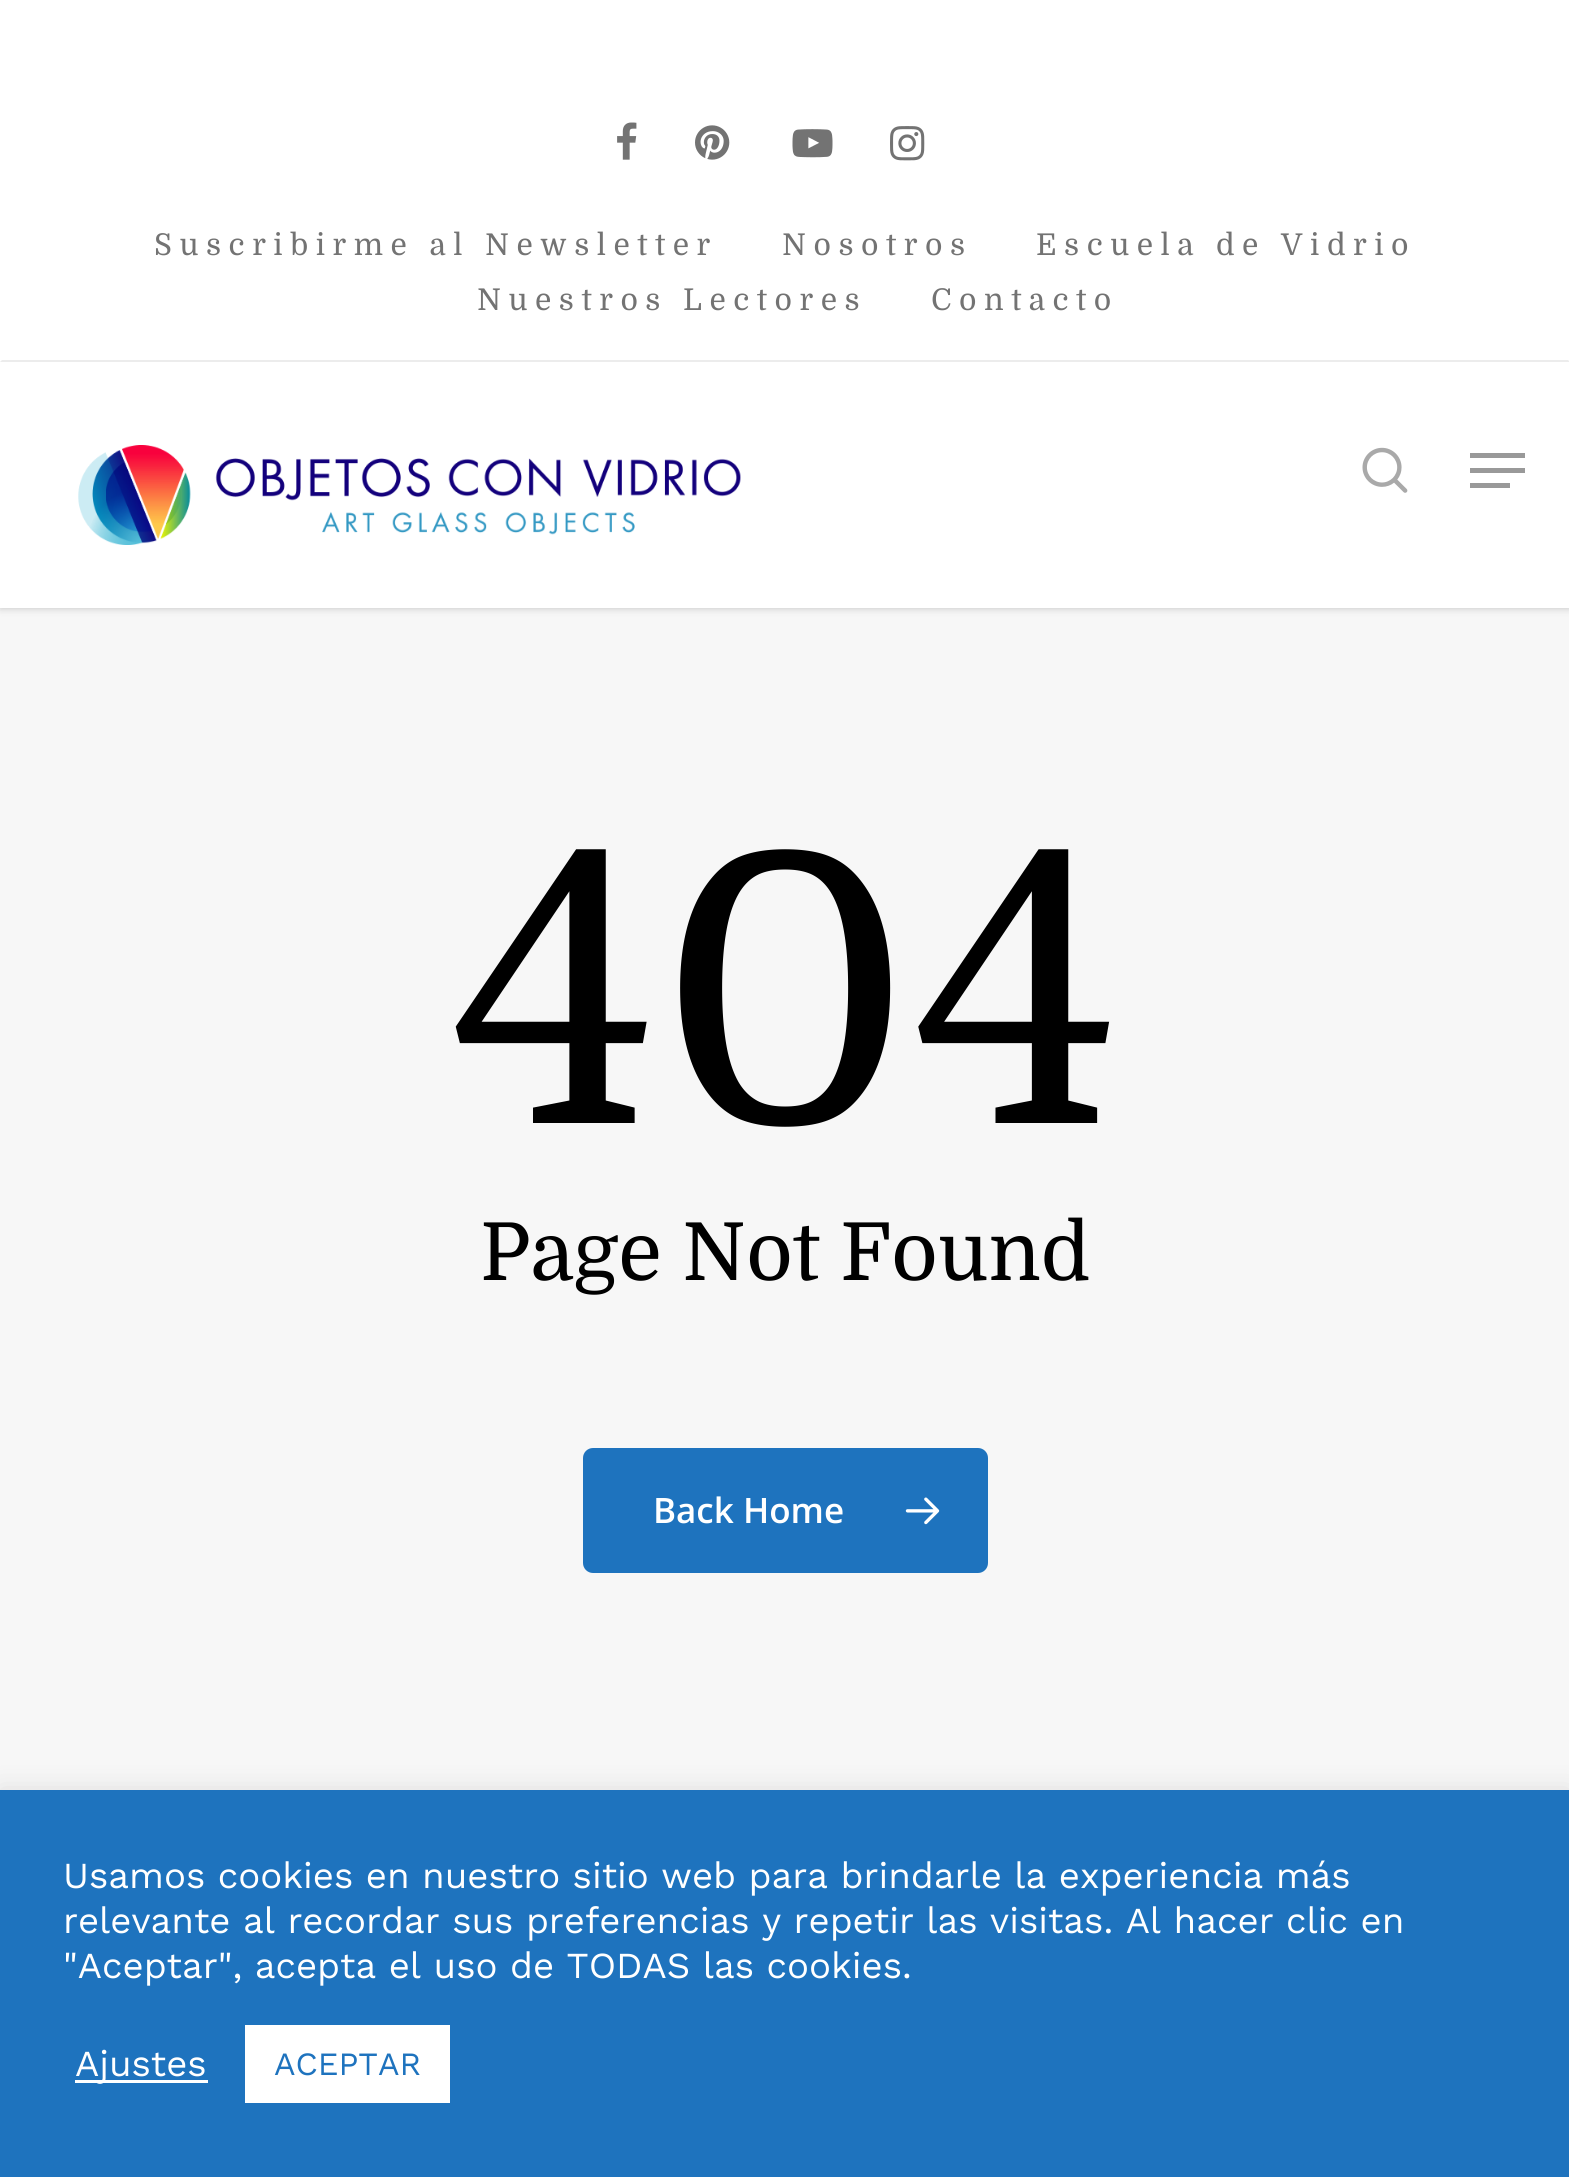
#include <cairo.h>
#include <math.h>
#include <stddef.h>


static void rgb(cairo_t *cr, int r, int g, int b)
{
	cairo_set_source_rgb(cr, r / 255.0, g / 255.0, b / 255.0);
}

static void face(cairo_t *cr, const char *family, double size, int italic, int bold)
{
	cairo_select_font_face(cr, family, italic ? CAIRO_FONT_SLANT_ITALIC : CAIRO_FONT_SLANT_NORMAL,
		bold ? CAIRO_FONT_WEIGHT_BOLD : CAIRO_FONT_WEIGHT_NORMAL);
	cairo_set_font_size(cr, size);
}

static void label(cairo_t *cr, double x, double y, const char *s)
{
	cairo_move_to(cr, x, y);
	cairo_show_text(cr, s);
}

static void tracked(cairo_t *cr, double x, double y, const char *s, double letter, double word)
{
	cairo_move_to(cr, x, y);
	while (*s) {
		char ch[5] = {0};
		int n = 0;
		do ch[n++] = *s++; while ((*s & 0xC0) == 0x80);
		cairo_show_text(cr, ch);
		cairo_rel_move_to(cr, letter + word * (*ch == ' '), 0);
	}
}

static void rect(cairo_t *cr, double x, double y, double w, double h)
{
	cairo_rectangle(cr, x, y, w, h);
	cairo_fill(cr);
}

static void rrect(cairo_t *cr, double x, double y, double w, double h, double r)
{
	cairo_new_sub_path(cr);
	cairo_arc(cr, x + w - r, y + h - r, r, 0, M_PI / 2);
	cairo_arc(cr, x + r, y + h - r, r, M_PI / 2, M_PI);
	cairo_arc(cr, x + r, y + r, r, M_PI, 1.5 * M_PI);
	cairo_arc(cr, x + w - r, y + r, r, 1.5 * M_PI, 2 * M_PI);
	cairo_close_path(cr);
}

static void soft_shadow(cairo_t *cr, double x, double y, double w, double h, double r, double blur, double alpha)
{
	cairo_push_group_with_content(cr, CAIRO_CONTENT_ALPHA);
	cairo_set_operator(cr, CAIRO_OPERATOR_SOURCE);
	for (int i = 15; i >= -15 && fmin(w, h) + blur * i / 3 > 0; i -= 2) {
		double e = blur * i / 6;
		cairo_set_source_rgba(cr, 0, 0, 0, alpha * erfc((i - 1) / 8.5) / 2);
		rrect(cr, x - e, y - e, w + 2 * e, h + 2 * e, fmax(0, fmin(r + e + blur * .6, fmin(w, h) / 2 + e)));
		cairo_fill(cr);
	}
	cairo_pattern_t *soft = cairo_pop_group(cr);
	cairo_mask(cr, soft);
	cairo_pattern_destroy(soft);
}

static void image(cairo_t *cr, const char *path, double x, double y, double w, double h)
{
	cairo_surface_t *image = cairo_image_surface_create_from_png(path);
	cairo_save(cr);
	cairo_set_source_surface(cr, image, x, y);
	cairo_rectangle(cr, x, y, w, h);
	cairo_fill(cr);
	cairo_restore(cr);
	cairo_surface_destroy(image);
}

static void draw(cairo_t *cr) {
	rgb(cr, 247, 247, 247);
	cairo_paint(cr);
	rgb(cr, 0, 0, 0);
	soft_shadow(cr, 0, 0, 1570, 608, 0, 4, 0.22);
	rgb(cr, 255, 255, 255);
	rect(cr, 0, 0, 1569, 608);
	rgb(cr, 236, 236, 236);
	cairo_new_path(cr);
	cairo_move_to(cr, 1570, 362);
	cairo_line_to(cr, 0, 362);
	cairo_line_to(cr, 2, 360);
	cairo_line_to(cr, 1568, 360);
	cairo_close_path(cr);
	cairo_fill(cr);
	image(cr, "image0.png", 617, 122, 20, 38);
	image(cr, "image1.png", 695, 125, 35, 35);
	image(cr, "image2.png", 792, 129, 41, 29);
	image(cr, "image3.png", 890, 126, 35, 35);
	face(cr, "Domine", 30, 0, 0);
	rgb(cr, 115, 115, 115);
	tracked(cr, 154, 255, "Suscribirme al Newsletter", 7.5, 0);
	tracked(cr, 782, 255, "Nosotros", 7.5, 0);
	tracked(cr, 1036, 255, "Escuela de Vidrio", 7.5, 0);
	tracked(cr, 477, 310, "Nuestros Lectores", 7.5, 0);
	tracked(cr, 931, 310, "Contacto", 7.5, 0);
	image(cr, "image4.png", 78, 445, 663, 100);
	image(cr, "image5.png", 1362, 447, 46, 46);
	rgb(cr, 153, 153, 153);
	rect(cr, 1470, 453, 55, 5);
	rect(cr, 1470, 483, 40, 5);
	rect(cr, 1470, 468, 55, 5);
	face(cr, "Domine", 375, 0, 0);
	rgb(cr, 0, 0, 0);
	label(cr, 449, 1123, "404");
	face(cr, "Domine", 80, 0, 0);
	label(cr, 480, 1280, "Page Not Found");
	rgb(cr, 30, 115, 190);
	rrect(cr, 583, 1448, 405, 125, 10);
	cairo_fill(cr);
	face(cr, "Open Sans SemiBold", 35, 0, 0);
	rgb(cr, 255, 255, 255);
	label(cr, 653, 1523, "Back Home");
	image(cr, "image6.png", 905, 1497, 35, 28);
	rgb(cr, 172, 171, 171);
	soft_shadow(cr, 0, 1788, 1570, 387, 0, 12.5, 0.3);
	rgb(cr, 30, 115, 190);
	rect(cr, 0, 1790, 1569, 387);
	face(cr, "Work Sans", 36.65, 0, 0);
	rgb(cr, 255, 255, 255);
	label(cr, 63, 1888, "Usamos cookies en nuestro sitio web para brindarle la experiencia más");
	label(cr, 63, 1933, "relevante al recordar sus preferencias y repetir las visitas. Al hacer clic en");
	label(cr, 63, 1978, "\"Aceptar\", acepta el uso de TODAS las cookies.");
	rect(cr, 75, 2080, 133, 3);
	label(cr, 75, 2076, "Ajustes");
	rect(cr, 245, 2025, 205, 78);
	face(cr, "Work Sans", 32.5, 0, 0);
	rgb(cr, 30, 115, 190);
	label(cr, 274, 2075, "ACEPTAR");
}

int main(void) {
	cairo_surface_t *surface = cairo_image_surface_create(CAIRO_FORMAT_RGB24, 1569, 2177);
	cairo_t *cr = cairo_create(surface);
	cairo_font_options_t *options = cairo_font_options_create();
	cairo_font_options_set_hint_metrics(options, CAIRO_HINT_METRICS_OFF);
	cairo_font_options_set_hint_style(options, CAIRO_HINT_STYLE_NONE);
	cairo_set_font_options(cr, options);
	cairo_set_miter_limit(cr, 4);
	draw(cr);
	cairo_surface_write_to_png(surface, "render.png");
	cairo_font_options_destroy(options);
	cairo_destroy(cr);
	cairo_surface_destroy(surface);
	return 0;
}
